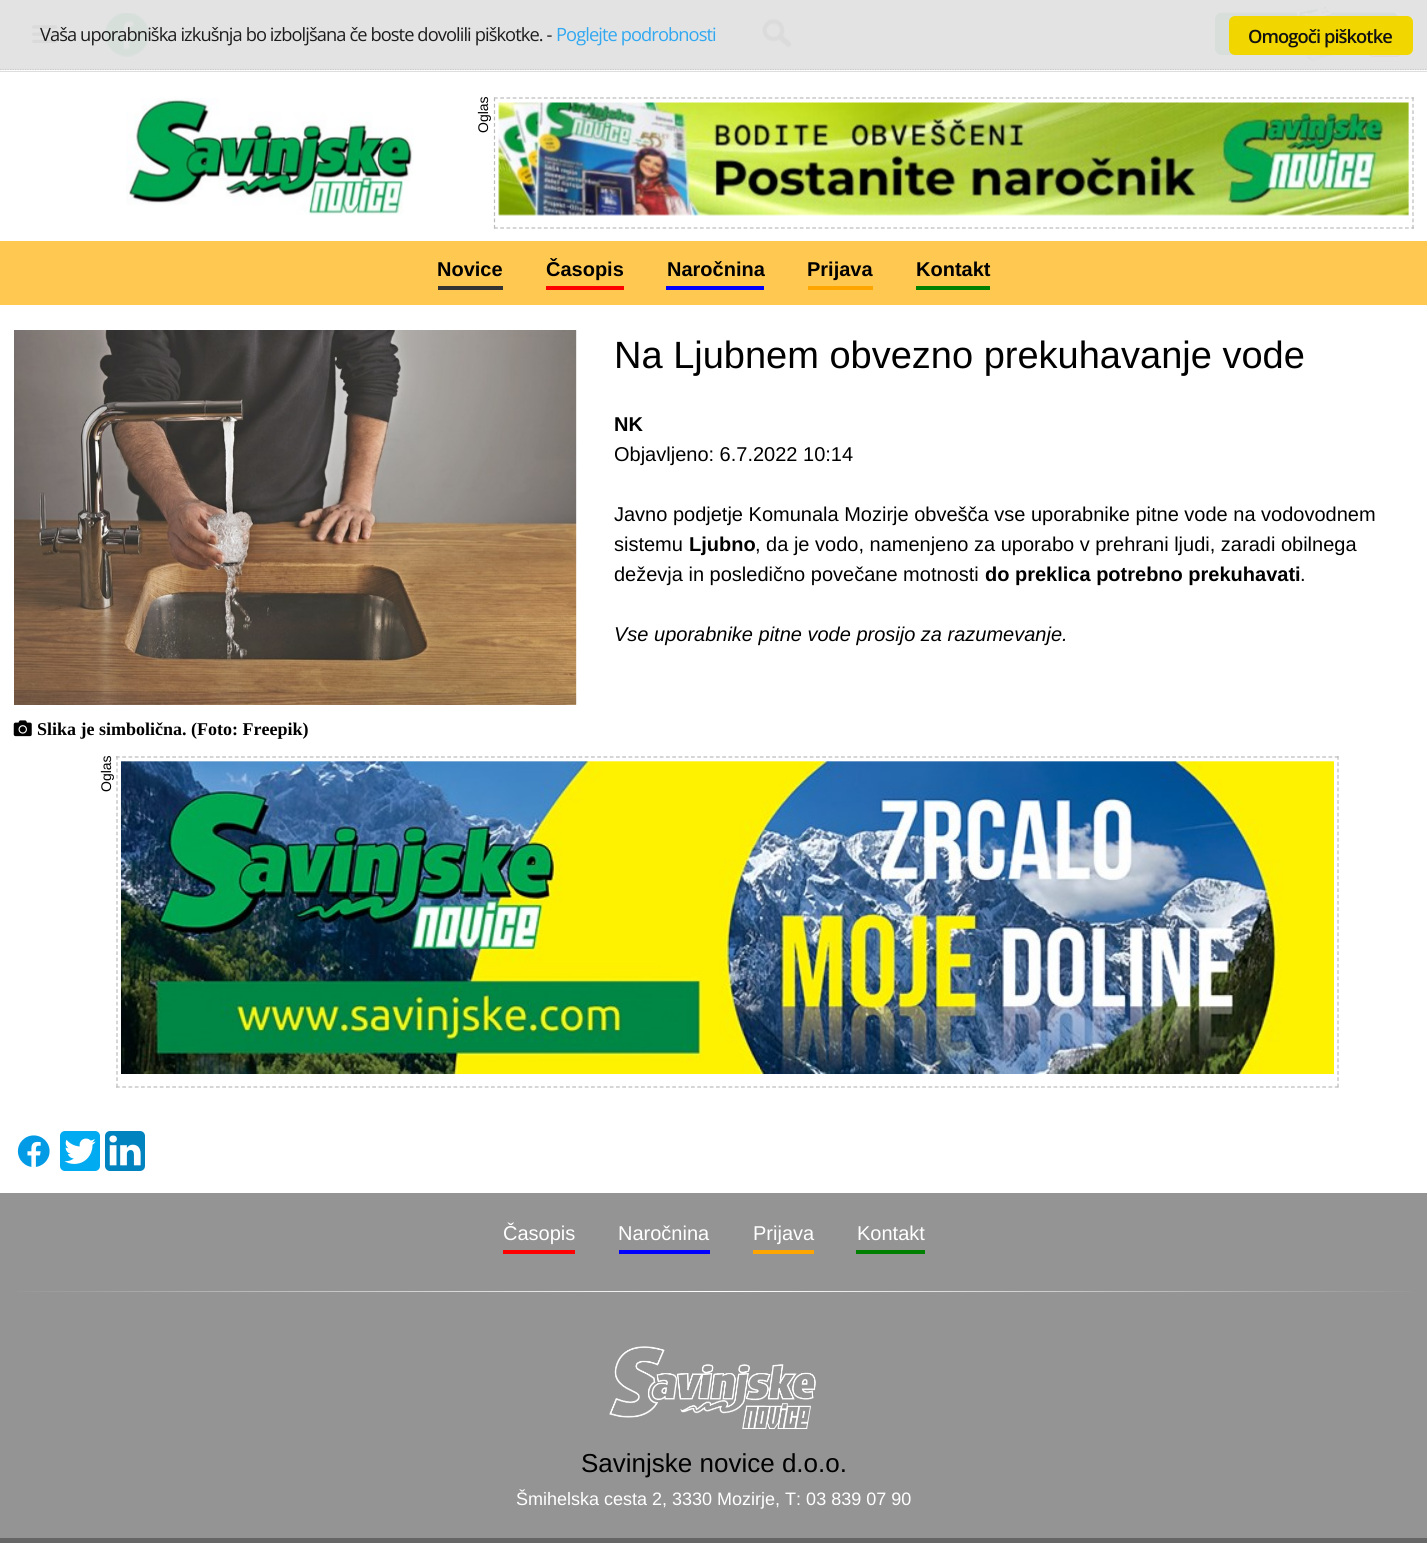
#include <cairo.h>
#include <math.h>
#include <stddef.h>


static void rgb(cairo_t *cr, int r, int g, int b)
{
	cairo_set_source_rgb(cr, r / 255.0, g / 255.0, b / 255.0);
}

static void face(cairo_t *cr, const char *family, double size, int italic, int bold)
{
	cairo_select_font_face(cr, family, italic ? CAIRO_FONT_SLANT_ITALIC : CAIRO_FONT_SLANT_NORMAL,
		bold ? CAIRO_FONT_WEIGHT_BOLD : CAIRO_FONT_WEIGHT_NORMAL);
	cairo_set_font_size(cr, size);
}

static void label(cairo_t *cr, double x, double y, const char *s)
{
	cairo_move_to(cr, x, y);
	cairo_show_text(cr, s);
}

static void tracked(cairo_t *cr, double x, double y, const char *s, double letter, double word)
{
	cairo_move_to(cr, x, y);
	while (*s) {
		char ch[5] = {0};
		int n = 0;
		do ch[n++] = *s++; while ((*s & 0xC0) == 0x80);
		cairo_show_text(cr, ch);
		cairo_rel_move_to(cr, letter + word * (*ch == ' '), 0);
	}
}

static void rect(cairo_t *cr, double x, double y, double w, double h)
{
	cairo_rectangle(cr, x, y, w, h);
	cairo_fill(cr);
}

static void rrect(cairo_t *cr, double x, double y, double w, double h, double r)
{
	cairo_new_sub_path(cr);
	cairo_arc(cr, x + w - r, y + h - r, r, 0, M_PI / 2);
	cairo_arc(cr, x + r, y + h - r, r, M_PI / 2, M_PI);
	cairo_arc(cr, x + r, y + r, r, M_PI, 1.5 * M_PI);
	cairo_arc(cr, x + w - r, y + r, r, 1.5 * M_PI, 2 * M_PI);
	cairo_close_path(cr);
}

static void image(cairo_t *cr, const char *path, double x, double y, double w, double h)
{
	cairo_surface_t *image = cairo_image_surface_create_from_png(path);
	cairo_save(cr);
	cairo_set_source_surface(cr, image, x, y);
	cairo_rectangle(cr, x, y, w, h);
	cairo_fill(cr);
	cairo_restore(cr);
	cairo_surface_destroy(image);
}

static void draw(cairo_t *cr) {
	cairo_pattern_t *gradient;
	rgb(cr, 255, 255, 255);
	cairo_paint(cr);
	rgb(cr, 227, 227, 227);
	rect(cr, 0, 0, 1427, 70);
	cairo_new_path(cr);
	cairo_move_to(cr, 0, 69.5);
	cairo_line_to(cr, 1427.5, 69.5);
	rgb(cr, 204, 204, 204);
	cairo_set_line_width(cr, 1.2);
	cairo_set_dash(cr, (double[]){1.25, 1.25}, 2, 0);
	cairo_stroke(cr);
	image(cr, "image0.png", 105, 13, 44, 44);
	image(cr, "image3.png", 31, 25, 27, 19);
	face(cr, "Open Sans", 18.3, 0, 0);
	rgb(cr, 29, 29, 29);
	tracked(cr, 40, 41, "Vaša uporabniška izkušnja bo izboljšana če boste dovolili piškotke. -", -0.92, 0);
	rgb(cr, 49, 168, 240);
	tracked(cr, 556, 41, "Poglejte podrobnosti", -0.92, 0);
	image(cr, "image2.png", 1215, 6, 185, 57);
	rgb(cr, 241, 214, 0);
	rrect(cr, 1229, 16, 184, 39, 6);
	cairo_fill(cr);
	face(cr, "Open Sans SemiBold", 18.3, 0, 0);
	rgb(cr, 17, 17, 17);
	tracked(cr, 1248, 43, "Omogoči piškotke", -0.92, 0);
	rgb(cr, 222, 222, 222);
	rect(cr, 0, 71, 1427, 1);
	image(cr, "image1.png", 762, 18, 30, 30);
	image(cr, "image4.png", 126, 98, 288, 117);
	face(cr, "Liberation Sans", 14, 0, 0);
	rgb(cr, 0, 0, 0);
	cairo_save(cr);
	cairo_translate(cr, 488, 133);
	cairo_rotate(cr, -90 * M_PI / 180);
	label(cr, 0, 0, "Oglas");
	cairo_restore(cr);
	cairo_new_path(cr);
	cairo_move_to(cr, 494, 98);
	cairo_line_to(cr, 1414, 98);
	rgb(cr, 187, 187, 187);
	cairo_set_dash(cr, (double[]){3.75, 2.49}, 2, 0);
	cairo_stroke(cr);
	cairo_new_path(cr);
	cairo_move_to(cr, 1413, 97.5);
	cairo_line_to(cr, 1413, 229);
	cairo_set_dash(cr, (double[]){3.75, 2.62}, 2, 0);
	cairo_stroke(cr);
	cairo_new_path(cr);
	cairo_move_to(cr, 494, 228);
	cairo_line_to(cr, 1414, 228);
	cairo_set_dash(cr, (double[]){3.75, 2.49}, 2, 0);
	cairo_stroke(cr);
	cairo_new_path(cr);
	cairo_move_to(cr, 494.5, 97.5);
	cairo_line_to(cr, 494.5, 229);
	cairo_set_dash(cr, (double[]){3.75, 2.62}, 2, 0);
	cairo_stroke(cr);
	image(cr, "image5.png", 498, 102, 911, 114);
	rgb(cr, 255, 201, 81);
	rect(cr, 0, 241, 1427, 64);
	rgb(cr, 51, 51, 51);
	rect(cr, 438, 286, 65, 4);
	face(cr, "Liberation Sans", 20, 0, 1);
	rgb(cr, 0, 0, 0);
	label(cr, 437, 276, "Novice");
	rgb(cr, 255, 0, 0);
	rect(cr, 546, 286, 78, 4);
	rgb(cr, 0, 0, 0);
	label(cr, 546, 276, "Časopis");
	rgb(cr, 0, 0, 255);
	rect(cr, 666, 286, 98, 4);
	rgb(cr, 0, 0, 0);
	label(cr, 667, 276, "Naročnina");
	rgb(cr, 255, 165, 0);
	rect(cr, 808, 286, 65, 4);
	rgb(cr, 0, 0, 0);
	label(cr, 807, 276, "Prijava");
	rgb(cr, 0, 128, 0);
	rect(cr, 916, 286, 74, 4);
	rgb(cr, 0, 0, 0);
	label(cr, 916, 276, "Kontakt");
	face(cr, "Liberation Sans", 38, 0, 0);
	label(cr, 614, 368, "Na Ljubnem obvezno prekuhavanje vode");
	face(cr, "Liberation Sans", 20, 0, 1);
	label(cr, 614, 431, "NK");
	face(cr, "Liberation Sans", 20, 0, 0);
	label(cr, 614, 461, "Objavljeno: 6.7.2022 10:14");
	label(cr, 614, 521, "Javno podjetje Komunala Mozirje obvešča vse uporabnike pitne vode na vodovodnem");
	label(cr, 614, 551, "sistemu");
	face(cr, "Liberation Sans", 20, 0, 1);
	label(cr, 689, 551, "Ljubno");
	face(cr, "Liberation Sans", 20, 0, 0);
	label(cr, 755, 551, ", da je vodo, namenjeno za uporabo v prehrani ljudi, zaradi obilnega");
	label(cr, 614, 581, "deževja in posledično povečane motnosti");
	face(cr, "Liberation Sans", 20, 0, 1);
	label(cr, 985, 581, "do preklica potrebno prekuhavati");
	face(cr, "Liberation Sans", 20, 0, 0);
	label(cr, 1300, 581, ".");
	face(cr, "Liberation Sans", 20, 1, 0);
	label(cr, 614, 641, "Vse uporabnike pitne vode prosijo za razumevanje.");
	image(cr, "image6.png", 14, 330, 563, 375);
	image(cr, "image7.png", 13, 720, 19, 17);
	face(cr, "Liberation Serif", 18, 0, 1);
	label(cr, 37, 735, "Slika je simbolična. (Foto: Freepik)");
	face(cr, "Liberation Sans", 14, 0, 0);
	cairo_save(cr);
	cairo_translate(cr, 111, 792);
	cairo_rotate(cr, -90 * M_PI / 180);
	label(cr, 0, 0, "Oglas");
	cairo_restore(cr);
	cairo_new_path(cr);
	cairo_move_to(cr, 116, 757);
	cairo_line_to(cr, 1339, 757);
	rgb(cr, 187, 187, 187);
	cairo_set_dash(cr, (double[]){3.75, 2.5}, 2, 0);
	cairo_stroke(cr);
	cairo_new_path(cr);
	cairo_move_to(cr, 1338, 756);
	cairo_line_to(cr, 1338, 1087.5);
	cairo_set_dash(cr, (double[]){3.75, 2.55}, 2, 0);
	cairo_stroke(cr);
	cairo_new_path(cr);
	cairo_move_to(cr, 116, 1087);
	cairo_line_to(cr, 1339, 1087);
	cairo_set_dash(cr, (double[]){3.75, 2.5}, 2, 0);
	cairo_stroke(cr);
	cairo_new_path(cr);
	cairo_move_to(cr, 117, 756);
	cairo_line_to(cr, 117, 1087.5);
	cairo_set_dash(cr, (double[]){3.75, 2.55}, 2, 0);
	cairo_stroke(cr);
	image(cr, "image8.png", 121, 761, 1213, 313);
	image(cr, "image9.png", 17, 1135, 33, 33);
	image(cr, "image10.png", 60, 1131, 40, 40);
	image(cr, "image11.png", 105, 1131, 40, 40);
	rgb(cr, 148, 148, 148);
	rect(cr, 0, 1193, 1427, 345);
	rgb(cr, 255, 0, 0);
	rect(cr, 503, 1250, 72, 4);
	face(cr, "Liberation Sans", 20, 0, 0);
	rgb(cr, 255, 255, 255);
	label(cr, 503, 1240, "Časopis");
	rgb(cr, 0, 0, 255);
	rect(cr, 619, 1250, 91, 4);
	rgb(cr, 255, 255, 255);
	label(cr, 618, 1240, "Naročnina");
	rgb(cr, 255, 165, 0);
	rect(cr, 753, 1250, 61, 4);
	rgb(cr, 255, 255, 255);
	label(cr, 753, 1240, "Prijava");
	rgb(cr, 0, 128, 0);
	rect(cr, 856, 1250, 69, 4);
	rgb(cr, 255, 255, 255);
	label(cr, 857, 1240, "Kontakt");
	gradient = cairo_pattern_create_linear(0, 1292, 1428, 1292);
	cairo_pattern_add_color_stop_rgba(gradient, 0, 0.58, 0.58, 0.58, 1);
	cairo_pattern_add_color_stop_rgba(gradient, 0.5, 1, 1, 1, 1);
	cairo_pattern_add_color_stop_rgba(gradient, 1, 0.58, 0.58, 0.58, 1);
	cairo_set_source(cr, gradient);
	cairo_pattern_destroy(gradient);
	rect(cr, 17, 1291, 1394, 1);
	image(cr, "image12.png", 609, 1346, 207, 83);
	face(cr, "Liberation Sans", 26, 0, 0);
	rgb(cr, 0, 0, 0);
	label(cr, 581, 1472, "Savinjske novice d.o.o.");
	face(cr, "Liberation Sans", 18, 0, 0);
	rgb(cr, 255, 255, 255);
	label(cr, 516, 1505, "Šmihelska cesta 2, 3330 Mozirje, T: 03 839 07 90");
	rgb(cr, 102, 102, 102);
	rect(cr, 0, 1538, 1427, 5);
}

int main(void) {
	cairo_surface_t *surface = cairo_image_surface_create(CAIRO_FORMAT_RGB24, 1427, 1543);
	cairo_t *cr = cairo_create(surface);
	cairo_font_options_t *options = cairo_font_options_create();
	cairo_font_options_set_hint_metrics(options, CAIRO_HINT_METRICS_OFF);
	cairo_font_options_set_hint_style(options, CAIRO_HINT_STYLE_NONE);
	cairo_set_font_options(cr, options);
	cairo_set_miter_limit(cr, 4);
	draw(cr);
	cairo_surface_write_to_png(surface, "render.png");
	cairo_font_options_destroy(options);
	cairo_destroy(cr);
	cairo_surface_destroy(surface);
	return 0;
}
